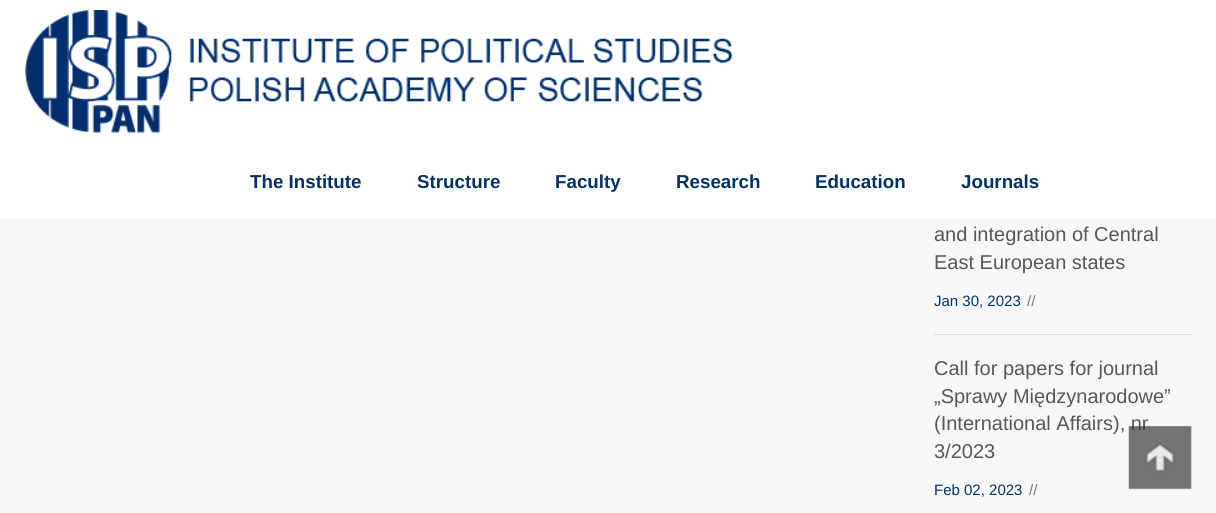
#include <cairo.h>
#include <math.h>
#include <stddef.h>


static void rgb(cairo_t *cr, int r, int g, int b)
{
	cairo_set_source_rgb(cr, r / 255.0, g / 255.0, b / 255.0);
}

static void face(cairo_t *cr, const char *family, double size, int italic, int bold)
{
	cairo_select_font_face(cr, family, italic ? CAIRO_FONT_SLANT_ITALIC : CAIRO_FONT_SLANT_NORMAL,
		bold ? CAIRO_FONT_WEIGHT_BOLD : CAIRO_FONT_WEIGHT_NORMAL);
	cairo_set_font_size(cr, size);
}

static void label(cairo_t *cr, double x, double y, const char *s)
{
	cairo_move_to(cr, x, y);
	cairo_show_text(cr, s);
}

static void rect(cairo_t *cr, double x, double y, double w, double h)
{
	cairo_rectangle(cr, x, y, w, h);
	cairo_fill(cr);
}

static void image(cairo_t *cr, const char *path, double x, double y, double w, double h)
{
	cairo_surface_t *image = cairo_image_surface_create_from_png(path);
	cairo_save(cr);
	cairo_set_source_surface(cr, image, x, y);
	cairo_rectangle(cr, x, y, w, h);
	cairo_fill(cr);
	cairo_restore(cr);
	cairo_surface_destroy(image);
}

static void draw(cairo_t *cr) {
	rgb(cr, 247, 247, 247);
	cairo_paint(cr);
	rgb(cr, 255, 255, 255);
	rect(cr, 0, 0, 1216, 219);
	image(cr, "image0.png", 25, 10, 708, 123);
	face(cr, "Liberation Sans", 18.75, 0, 1);
	rgb(cr, 3, 50, 106);
	label(cr, 250, 188, "The Institute");
	label(cr, 417, 188, "Structure");
	label(cr, 555, 188, "Faculty");
	label(cr, 676, 188, "Research");
	label(cr, 815, 188, "Education");
	label(cr, 961, 188, "Journals");
	face(cr, "Liberation Sans", 20, 0, 0);
	rgb(cr, 85, 88, 91);
	label(cr, 934, 241, "and integration of Central");
	label(cr, 934, 269, "East European states");
	face(cr, "Liberation Sans", 15, 0, 0);
	rgb(cr, 3, 50, 106);
	label(cr, 934, 306, "Jan 30, 2023");
	rgb(cr, 117, 119, 119);
	label(cr, 1027, 306, "//");
	rgb(cr, 221, 221, 221);
	rect(cr, 934, 334, 257, 1);
	face(cr, "Liberation Sans", 20, 0, 0);
	rgb(cr, 85, 88, 91);
	label(cr, 934, 375, "Call for papers for journal");
	label(cr, 934, 403, "„Sprawy Międzynarodowe”");
	label(cr, 934, 430, "(International Affairs), nr");
	label(cr, 934, 458, "3/2023");
	face(cr, "Liberation Sans", 15, 0, 0);
	rgb(cr, 3, 50, 106);
	label(cr, 934, 495, "Feb 02, 2023");
	rgb(cr, 117, 119, 119);
	label(cr, 1029, 495, "//");
	cairo_set_source_rgba(cr, 0, 0, 0, 0.17);
	rect(cr, 1129, 426, 62, 63);
	image(cr, "image1.png", 1128, 426, 64, 64);
}

int main(void) {
	cairo_surface_t *surface = cairo_image_surface_create(CAIRO_FORMAT_RGB24, 1216, 513);
	cairo_t *cr = cairo_create(surface);
	cairo_font_options_t *options = cairo_font_options_create();
	cairo_font_options_set_hint_metrics(options, CAIRO_HINT_METRICS_OFF);
	cairo_font_options_set_hint_style(options, CAIRO_HINT_STYLE_NONE);
	cairo_set_font_options(cr, options);
	cairo_set_miter_limit(cr, 4);
	draw(cr);
	cairo_surface_write_to_png(surface, "render.png");
	cairo_font_options_destroy(options);
	cairo_destroy(cr);
	cairo_surface_destroy(surface);
	return 0;
}
